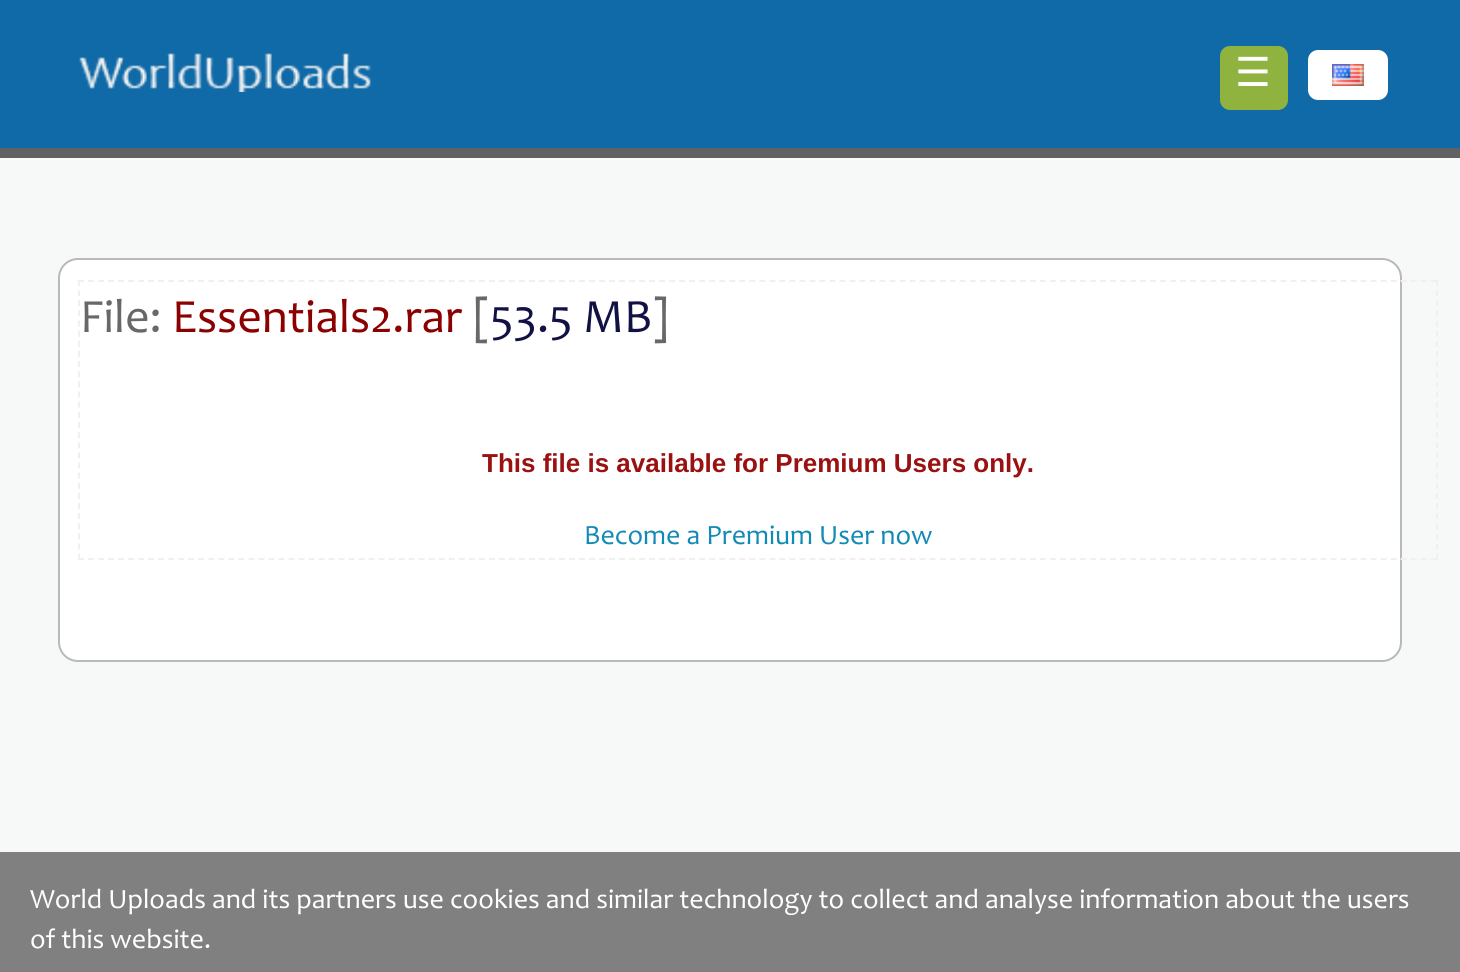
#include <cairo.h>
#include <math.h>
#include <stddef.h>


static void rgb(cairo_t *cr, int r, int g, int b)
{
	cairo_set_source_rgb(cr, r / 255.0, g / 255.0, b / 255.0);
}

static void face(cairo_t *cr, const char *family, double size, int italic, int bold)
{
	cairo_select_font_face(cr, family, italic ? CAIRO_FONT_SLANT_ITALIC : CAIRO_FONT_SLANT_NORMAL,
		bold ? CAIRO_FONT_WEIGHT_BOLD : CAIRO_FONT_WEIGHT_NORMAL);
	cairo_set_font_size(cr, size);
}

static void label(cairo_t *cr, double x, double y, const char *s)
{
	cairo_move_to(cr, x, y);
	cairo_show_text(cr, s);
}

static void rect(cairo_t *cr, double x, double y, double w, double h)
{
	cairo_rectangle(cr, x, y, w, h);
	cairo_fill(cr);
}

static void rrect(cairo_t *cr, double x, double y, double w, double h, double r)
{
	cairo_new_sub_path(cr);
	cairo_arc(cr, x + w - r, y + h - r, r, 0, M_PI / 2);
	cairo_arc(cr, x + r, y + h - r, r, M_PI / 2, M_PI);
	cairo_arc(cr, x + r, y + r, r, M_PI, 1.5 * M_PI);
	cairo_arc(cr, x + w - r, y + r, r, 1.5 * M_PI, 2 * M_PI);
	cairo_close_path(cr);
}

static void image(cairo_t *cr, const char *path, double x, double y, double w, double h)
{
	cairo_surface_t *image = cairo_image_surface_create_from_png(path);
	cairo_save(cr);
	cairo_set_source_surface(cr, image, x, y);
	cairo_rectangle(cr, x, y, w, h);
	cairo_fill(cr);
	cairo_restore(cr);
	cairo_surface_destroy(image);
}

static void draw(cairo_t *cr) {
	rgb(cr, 247, 248, 248);
	cairo_paint(cr);
	rgb(cr, 16, 106, 168);
	rect(cr, 0, 0, 1460, 148);
	rgb(cr, 96, 97, 99);
	rect(cr, 0, 148, 1460, 10);
	image(cr, "image0.png", 79, 53, 292, 39);
	rgb(cr, 143, 179, 62);
	rrect(cr, 1220, 46, 68, 64, 10);
	cairo_fill(cr);
	face(cr, "DejaVu Sans", 40, 0, 0);
	rgb(cr, 255, 255, 255);
	label(cr, 1235, 86, "☰");
	rrect(cr, 1308, 50, 80, 50, 10);
	cairo_fill(cr);
	image(cr, "image1.png", 1332, 64, 32, 22);
	rrect(cr, 59, 259, 1342, 402, 19);
	cairo_fill_preserve(cr);
	rgb(cr, 183, 185, 187);
	cairo_stroke(cr);
	cairo_new_path(cr);
	cairo_move_to(cr, 78, 281);
	cairo_line_to(cr, 1438, 281);
	rgb(cr, 240, 240, 240);
	cairo_set_dash(cr, (double[]){6, 4.02}, 2, 0);
	cairo_stroke(cr);
	cairo_new_path(cr);
	cairo_move_to(cr, 1437, 280);
	cairo_line_to(cr, 1437, 560);
	cairo_set_dash(cr, (double[]){6, 4.14}, 2, 0);
	cairo_stroke(cr);
	cairo_new_path(cr);
	cairo_move_to(cr, 78, 559);
	cairo_line_to(cr, 1438, 559);
	cairo_set_dash(cr, (double[]){6, 4.02}, 2, 0);
	cairo_stroke(cr);
	cairo_new_path(cr);
	cairo_move_to(cr, 79, 280);
	cairo_line_to(cr, 79, 560);
	cairo_set_dash(cr, (double[]){6, 4.14}, 2, 0);
	cairo_stroke(cr);
	face(cr, "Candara", 48, 0, 0);
	rgb(cr, 104, 104, 104);
	label(cr, 80, 332, "File:");
	rgb(cr, 139, 0, 0);
	label(cr, 172, 332, "Essentials2.rar");
	rgb(cr, 104, 104, 104);
	label(cr, 473, 332, "[");
	rgb(cr, 17, 17, 68);
	label(cr, 490, 332, "53.5 MB");
	rgb(cr, 104, 104, 104);
	label(cr, 652, 332, "]");
	face(cr, "Liberation Sans", 26, 0, 1);
	rgb(cr, 153, 17, 17);
	label(cr, 482, 472, "This file is available for Premium Users only.");
	face(cr, "Candara", 28, 0, 0);
	rgb(cr, 17, 139, 182);
	label(cr, 584, 544, "Become a Premium User now");
	rgb(cr, 128, 128, 128);
	rect(cr, 0, 852, 1460, 120);
	rgb(cr, 255, 255, 255);
	label(cr, 30, 908, "World Uploads and its partners use cookies and similar technology to collect and analyse information about the users");
	label(cr, 30, 948, "of this website.");
}

int main(void) {
	cairo_surface_t *surface = cairo_image_surface_create(CAIRO_FORMAT_RGB24, 1460, 972);
	cairo_t *cr = cairo_create(surface);
	cairo_font_options_t *options = cairo_font_options_create();
	cairo_font_options_set_hint_metrics(options, CAIRO_HINT_METRICS_OFF);
	cairo_font_options_set_hint_style(options, CAIRO_HINT_STYLE_NONE);
	cairo_set_font_options(cr, options);
	cairo_set_miter_limit(cr, 4);
	draw(cr);
	cairo_surface_write_to_png(surface, "render.png");
	cairo_font_options_destroy(options);
	cairo_destroy(cr);
	cairo_surface_destroy(surface);
	return 0;
}
